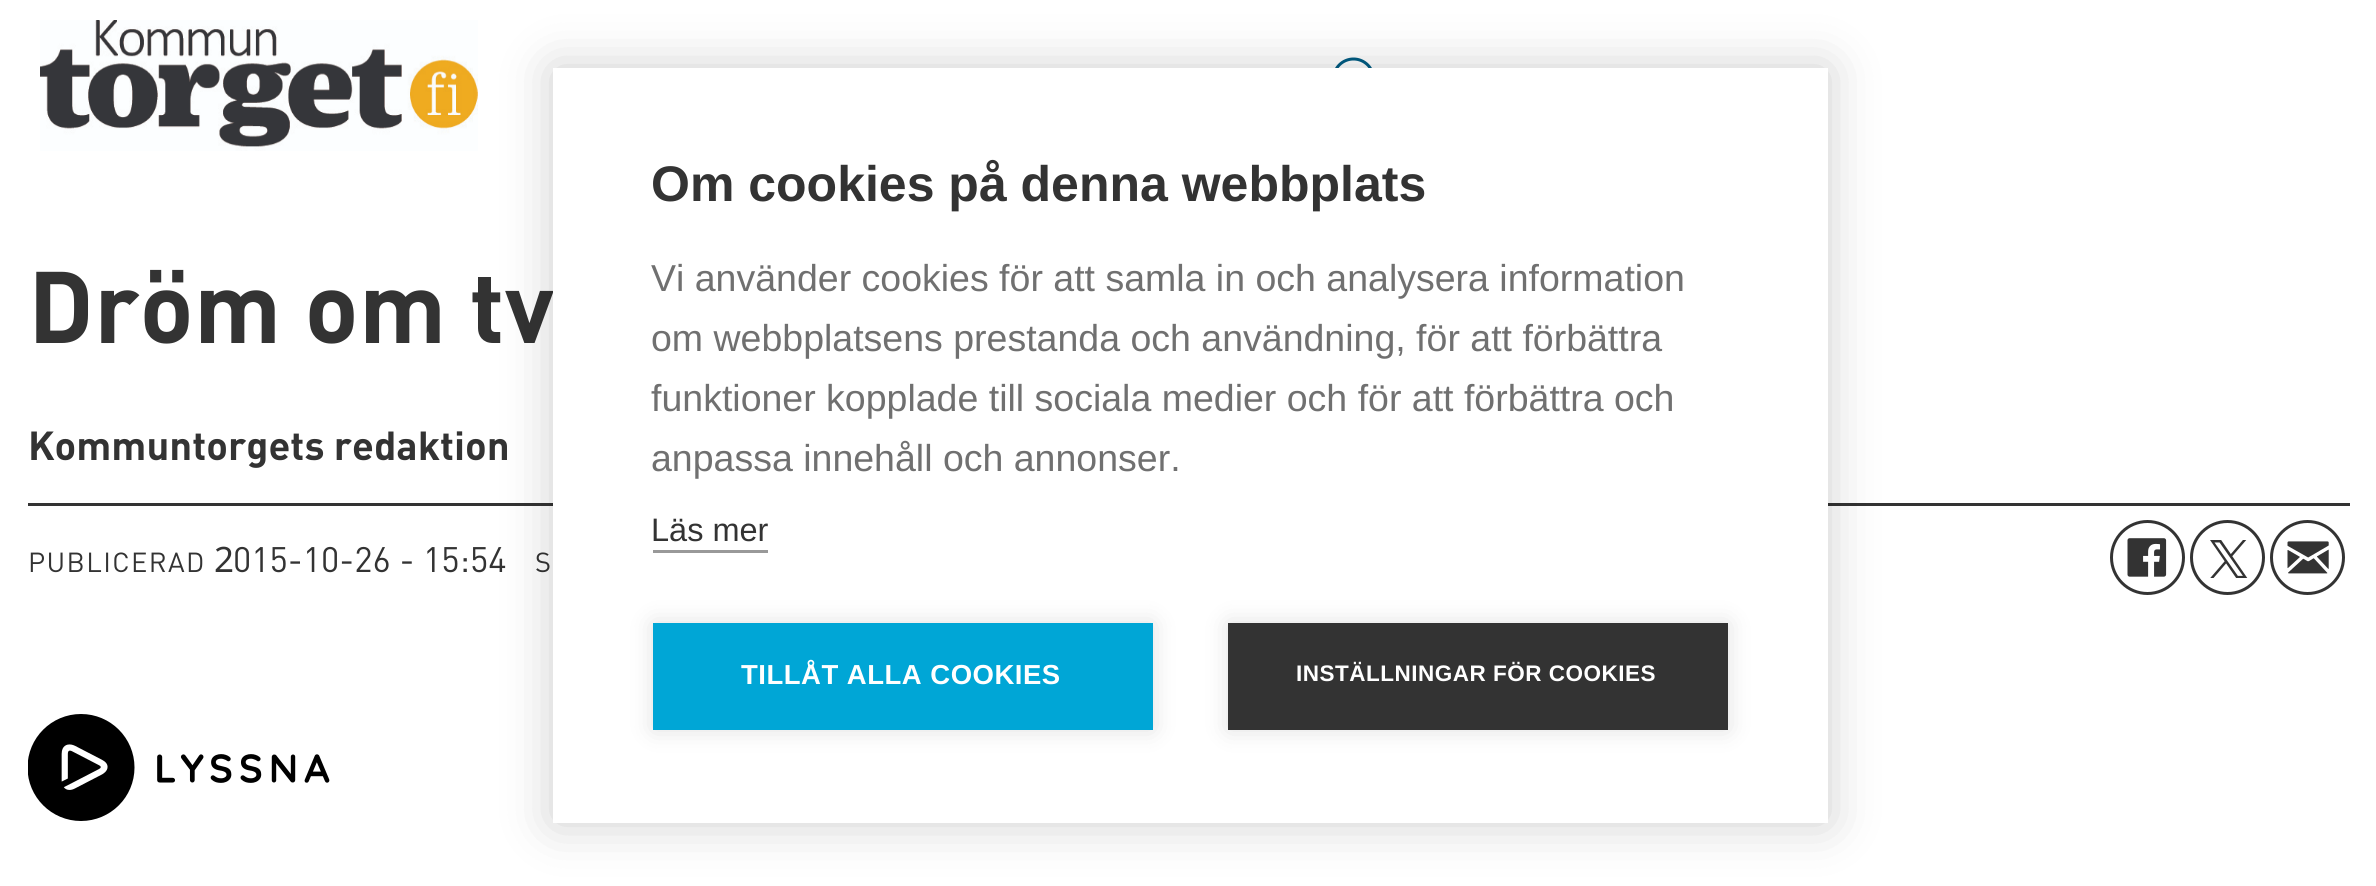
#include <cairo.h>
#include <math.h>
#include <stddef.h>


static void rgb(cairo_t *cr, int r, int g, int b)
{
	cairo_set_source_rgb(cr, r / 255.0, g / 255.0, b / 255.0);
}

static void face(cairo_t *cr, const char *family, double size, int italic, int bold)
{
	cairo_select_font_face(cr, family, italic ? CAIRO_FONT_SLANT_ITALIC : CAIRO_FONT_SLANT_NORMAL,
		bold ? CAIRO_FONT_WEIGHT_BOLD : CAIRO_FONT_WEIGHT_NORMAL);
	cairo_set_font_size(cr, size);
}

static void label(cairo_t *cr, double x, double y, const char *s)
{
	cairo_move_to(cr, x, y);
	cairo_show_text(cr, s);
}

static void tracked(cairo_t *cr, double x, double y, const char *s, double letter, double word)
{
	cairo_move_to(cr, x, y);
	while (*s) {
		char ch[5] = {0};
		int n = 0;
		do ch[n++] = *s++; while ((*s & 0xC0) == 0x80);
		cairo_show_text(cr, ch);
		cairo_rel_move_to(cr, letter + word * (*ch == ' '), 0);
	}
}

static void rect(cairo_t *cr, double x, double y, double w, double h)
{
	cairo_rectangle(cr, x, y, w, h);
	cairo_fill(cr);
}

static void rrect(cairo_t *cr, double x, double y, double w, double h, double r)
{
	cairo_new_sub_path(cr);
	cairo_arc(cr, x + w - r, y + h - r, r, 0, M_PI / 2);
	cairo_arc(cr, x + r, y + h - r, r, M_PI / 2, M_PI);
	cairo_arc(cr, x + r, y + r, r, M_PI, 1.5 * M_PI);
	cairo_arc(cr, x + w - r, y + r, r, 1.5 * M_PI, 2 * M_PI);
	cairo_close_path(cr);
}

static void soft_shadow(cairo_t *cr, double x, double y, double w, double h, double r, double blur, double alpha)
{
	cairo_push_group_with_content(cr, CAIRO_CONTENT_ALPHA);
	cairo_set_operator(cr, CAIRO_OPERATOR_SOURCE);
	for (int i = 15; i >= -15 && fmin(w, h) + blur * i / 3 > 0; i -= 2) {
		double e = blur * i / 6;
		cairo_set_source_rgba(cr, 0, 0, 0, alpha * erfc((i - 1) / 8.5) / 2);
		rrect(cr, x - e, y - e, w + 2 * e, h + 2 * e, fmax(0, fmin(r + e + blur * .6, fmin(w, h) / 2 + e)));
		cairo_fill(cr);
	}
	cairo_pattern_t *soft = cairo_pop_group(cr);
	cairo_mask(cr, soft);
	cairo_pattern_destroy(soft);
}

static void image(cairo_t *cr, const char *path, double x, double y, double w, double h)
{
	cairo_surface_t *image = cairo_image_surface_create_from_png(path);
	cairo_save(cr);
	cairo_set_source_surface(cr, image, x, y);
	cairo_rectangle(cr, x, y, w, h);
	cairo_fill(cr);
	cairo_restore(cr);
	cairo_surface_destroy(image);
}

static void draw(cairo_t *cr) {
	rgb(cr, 255, 255, 255);
	cairo_paint(cr);
	image(cr, "image0.png", 40, 20, 438, 131);
	cairo_arc(cr, 1353.5, 79, 20, 0, 2 * M_PI);
	rgb(cr, 0, 92, 131);
	cairo_set_line_width(cr, 3);
	cairo_stroke(cr);
	face(cr, "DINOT", 100, 0, 1);
	rgb(cr, 51, 51, 51);
	label(cr, 28, 343, "Dröm om tv");
	rect(cr, 28, 503, 2322, 3);
	face(cr, "DINOT", 40, 0, 1);
	label(cr, 28, 460, "Kommuntorgets redaktion");
	face(cr, "DINOT", 27.25, 0, 0);
	tracked(cr, 28, 572, "PUBLICERAD", 1.4, 0);
	face(cr, "Noto Sans", 35, 0, 0);
	label(cr, 214, 572, "2");
	face(cr, "DINOT", 35, 0, 0);
	label(cr, 233, 572, "015-10-26 - 15:54");
	face(cr, "DINOT", 27.25, 0, 0);
	tracked(cr, 535, 572, "S", 1.4, 0);
	cairo_new_path(cr);
	cairo_arc(cr, 2147.5, 557.5, 36, 0, 2 * M_PI);
	cairo_stroke(cr);
	image(cr, "image1.png", 2127, 538, 40, 39);
	cairo_arc(cr, 2227.5, 557.5, 36, 0, 2 * M_PI);
	cairo_stroke(cr);
	image(cr, "image2.png", 2210, 540, 38, 38);
	cairo_arc(cr, 2307.5, 557.5, 36, 0, 2 * M_PI);
	cairo_stroke(cr);
	image(cr, "image3.png", 2287, 541, 42, 33);
	image(cr, "image4.png", 28, 714, 302, 107);
	rgb(cr, 0, 0, 0);
	soft_shadow(cr, 553, 68, 1275, 755, 0, 25, 0.2);
	rgb(cr, 255, 255, 255);
	rect(cr, 553, 68, 1275, 755);
	face(cr, "Liberation Sans", 50, 0, 1);
	rgb(cr, 51, 51, 51);
	label(cr, 651, 201, "Om cookies på denna webbplats");
	face(cr, "Liberation Sans", 37.5, 0, 0);
	rgb(cr, 112, 112, 112);
	label(cr, 651, 291, "Vi använder cookies för att samla in och analysera information");
	label(cr, 651, 351, "om webbplatsens prestanda och användning, för att förbättra");
	label(cr, 651, 411, "funktioner kopplade till sociala medier och för att förbättra och");
	label(cr, 651, 471, "anpassa innehåll och annonser.");
	face(cr, "Liberation Sans", 32.5, 0, 0);
	rgb(cr, 51, 51, 51);
	label(cr, 651, 541, "Läs mer");
	rgb(cr, 153, 153, 153);
	rect(cr, 653, 550, 115, 3);
	rgb(cr, 0, 0, 0);
	soft_shadow(cr, 653, 623, 500, 107, 0, 12.5, 0.12);
	rgb(cr, 0, 166, 214);
	rect(cr, 653, 623, 500, 107);
	face(cr, "Liberation Sans", 27.5, 0, 1);
	rgb(cr, 255, 255, 255);
	tracked(cr, 741, 684, "TILLÅT ALLA COOKIES", 0.5, 0);
	rgb(cr, 0, 0, 0);
	soft_shadow(cr, 1228, 623, 500, 107, 0, 12.5, 0.12);
	rgb(cr, 51, 51, 51);
	rect(cr, 1228, 623, 500, 107);
	face(cr, "Liberation Sans", 22.5, 0, 1);
	rgb(cr, 255, 255, 255);
	tracked(cr, 1296, 681, "INSTÄLLNINGAR FÖR COOKIES", 0.5, 0);
}

int main(void) {
	cairo_surface_t *surface = cairo_image_surface_create(CAIRO_FORMAT_RGB24, 2376, 886);
	cairo_t *cr = cairo_create(surface);
	cairo_font_options_t *options = cairo_font_options_create();
	cairo_font_options_set_hint_metrics(options, CAIRO_HINT_METRICS_OFF);
	cairo_font_options_set_hint_style(options, CAIRO_HINT_STYLE_NONE);
	cairo_set_font_options(cr, options);
	cairo_set_miter_limit(cr, 4);
	draw(cr);
	cairo_surface_write_to_png(surface, "render.png");
	cairo_font_options_destroy(options);
	cairo_destroy(cr);
	cairo_surface_destroy(surface);
	return 0;
}
